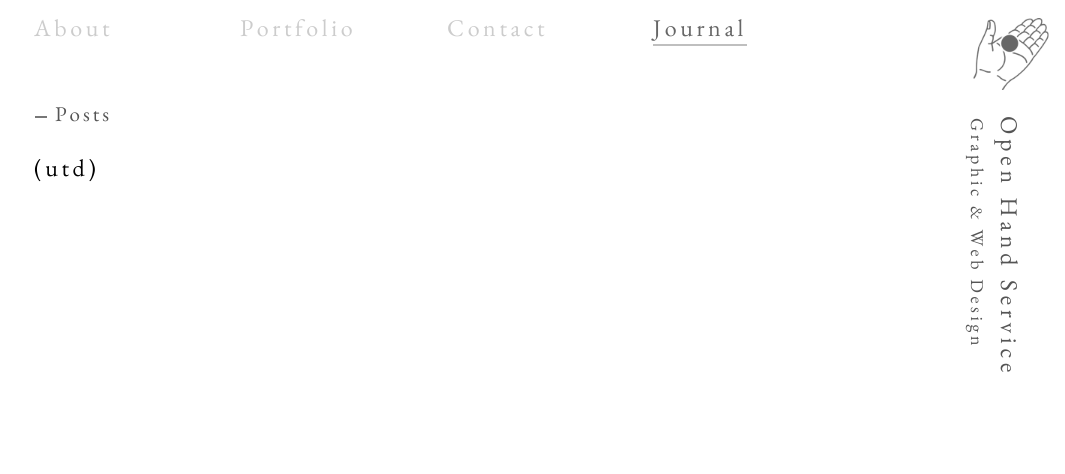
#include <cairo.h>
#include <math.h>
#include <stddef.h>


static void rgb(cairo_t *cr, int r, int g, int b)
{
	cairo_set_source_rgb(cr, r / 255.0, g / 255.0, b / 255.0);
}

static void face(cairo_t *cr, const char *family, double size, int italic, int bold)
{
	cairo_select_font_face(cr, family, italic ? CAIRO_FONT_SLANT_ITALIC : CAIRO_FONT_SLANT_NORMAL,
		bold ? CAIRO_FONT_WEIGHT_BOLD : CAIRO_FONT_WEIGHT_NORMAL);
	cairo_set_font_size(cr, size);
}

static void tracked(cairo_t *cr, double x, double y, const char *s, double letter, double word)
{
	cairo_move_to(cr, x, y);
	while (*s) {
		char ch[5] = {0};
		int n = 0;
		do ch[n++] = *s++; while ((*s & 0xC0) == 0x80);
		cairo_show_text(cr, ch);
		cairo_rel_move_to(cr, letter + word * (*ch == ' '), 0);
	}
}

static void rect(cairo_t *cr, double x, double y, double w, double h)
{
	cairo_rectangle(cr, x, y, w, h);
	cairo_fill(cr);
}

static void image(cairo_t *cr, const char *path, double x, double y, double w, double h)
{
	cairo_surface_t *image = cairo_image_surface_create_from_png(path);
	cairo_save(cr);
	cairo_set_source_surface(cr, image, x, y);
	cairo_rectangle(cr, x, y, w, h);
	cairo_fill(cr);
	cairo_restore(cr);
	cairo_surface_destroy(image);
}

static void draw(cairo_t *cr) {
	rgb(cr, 255, 255, 255);
	cairo_paint(cr);
	face(cr, "EB Garamond", 24, 0, 0);
	rgb(cr, 204, 204, 204);
	tracked(cr, 34, 36, "About", 3.6, 0);
	tracked(cr, 240, 36, "Portfolio", 3.6, 0);
	tracked(cr, 447, 36, "Contact", 3.6, 0);
	rgb(cr, 102, 102, 102);
	tracked(cr, 653, 36, "Journal", 3.6, 0);
	rgb(cr, 191, 191, 191);
	rect(cr, 653, 44, 94, 2);
	image(cr, "image0.png", 973, 18, 76, 72);
	face(cr, "EB Garamond", 18, 0, 0);
	rgb(cr, 85, 85, 85);
	cairo_save(cr);
	cairo_translate(cr, 971, 118);
	cairo_rotate(cr, 90 * M_PI / 180);
	tracked(cr, 0, 0, "Graphic & Web Design", 3.6, -1);
	cairo_restore(cr);
	face(cr, "EB Garamond", 24, 0, 0);
	cairo_save(cr);
	cairo_translate(cr, 1001, 116);
	cairo_rotate(cr, 90 * M_PI / 180);
	tracked(cr, 0, 0, "Open Hand Service", 4.75, 0);
	cairo_restore(cr);
	rgb(cr, 119, 119, 119);
	rect(cr, 35, 116, 12, 2);
	face(cr, "EB Garamond", 21, 0, 0);
	rgb(cr, 85, 85, 85);
	tracked(cr, 55, 121, "Posts", 3, 0);
	face(cr, "EB Garamond", 24, 0, 0);
	rgb(cr, 0, 0, 0);
	tracked(cr, 34, 176, "(utd)", 3.6, 0);
}

int main(void) {
	cairo_surface_t *surface = cairo_image_surface_create(CAIRO_FORMAT_RGB24, 1065, 474);
	cairo_t *cr = cairo_create(surface);
	cairo_font_options_t *options = cairo_font_options_create();
	cairo_font_options_set_hint_metrics(options, CAIRO_HINT_METRICS_OFF);
	cairo_font_options_set_hint_style(options, CAIRO_HINT_STYLE_NONE);
	cairo_set_font_options(cr, options);
	cairo_set_miter_limit(cr, 4);
	draw(cr);
	cairo_surface_write_to_png(surface, "render.png");
	cairo_font_options_destroy(options);
	cairo_destroy(cr);
	cairo_surface_destroy(surface);
	return 0;
}
